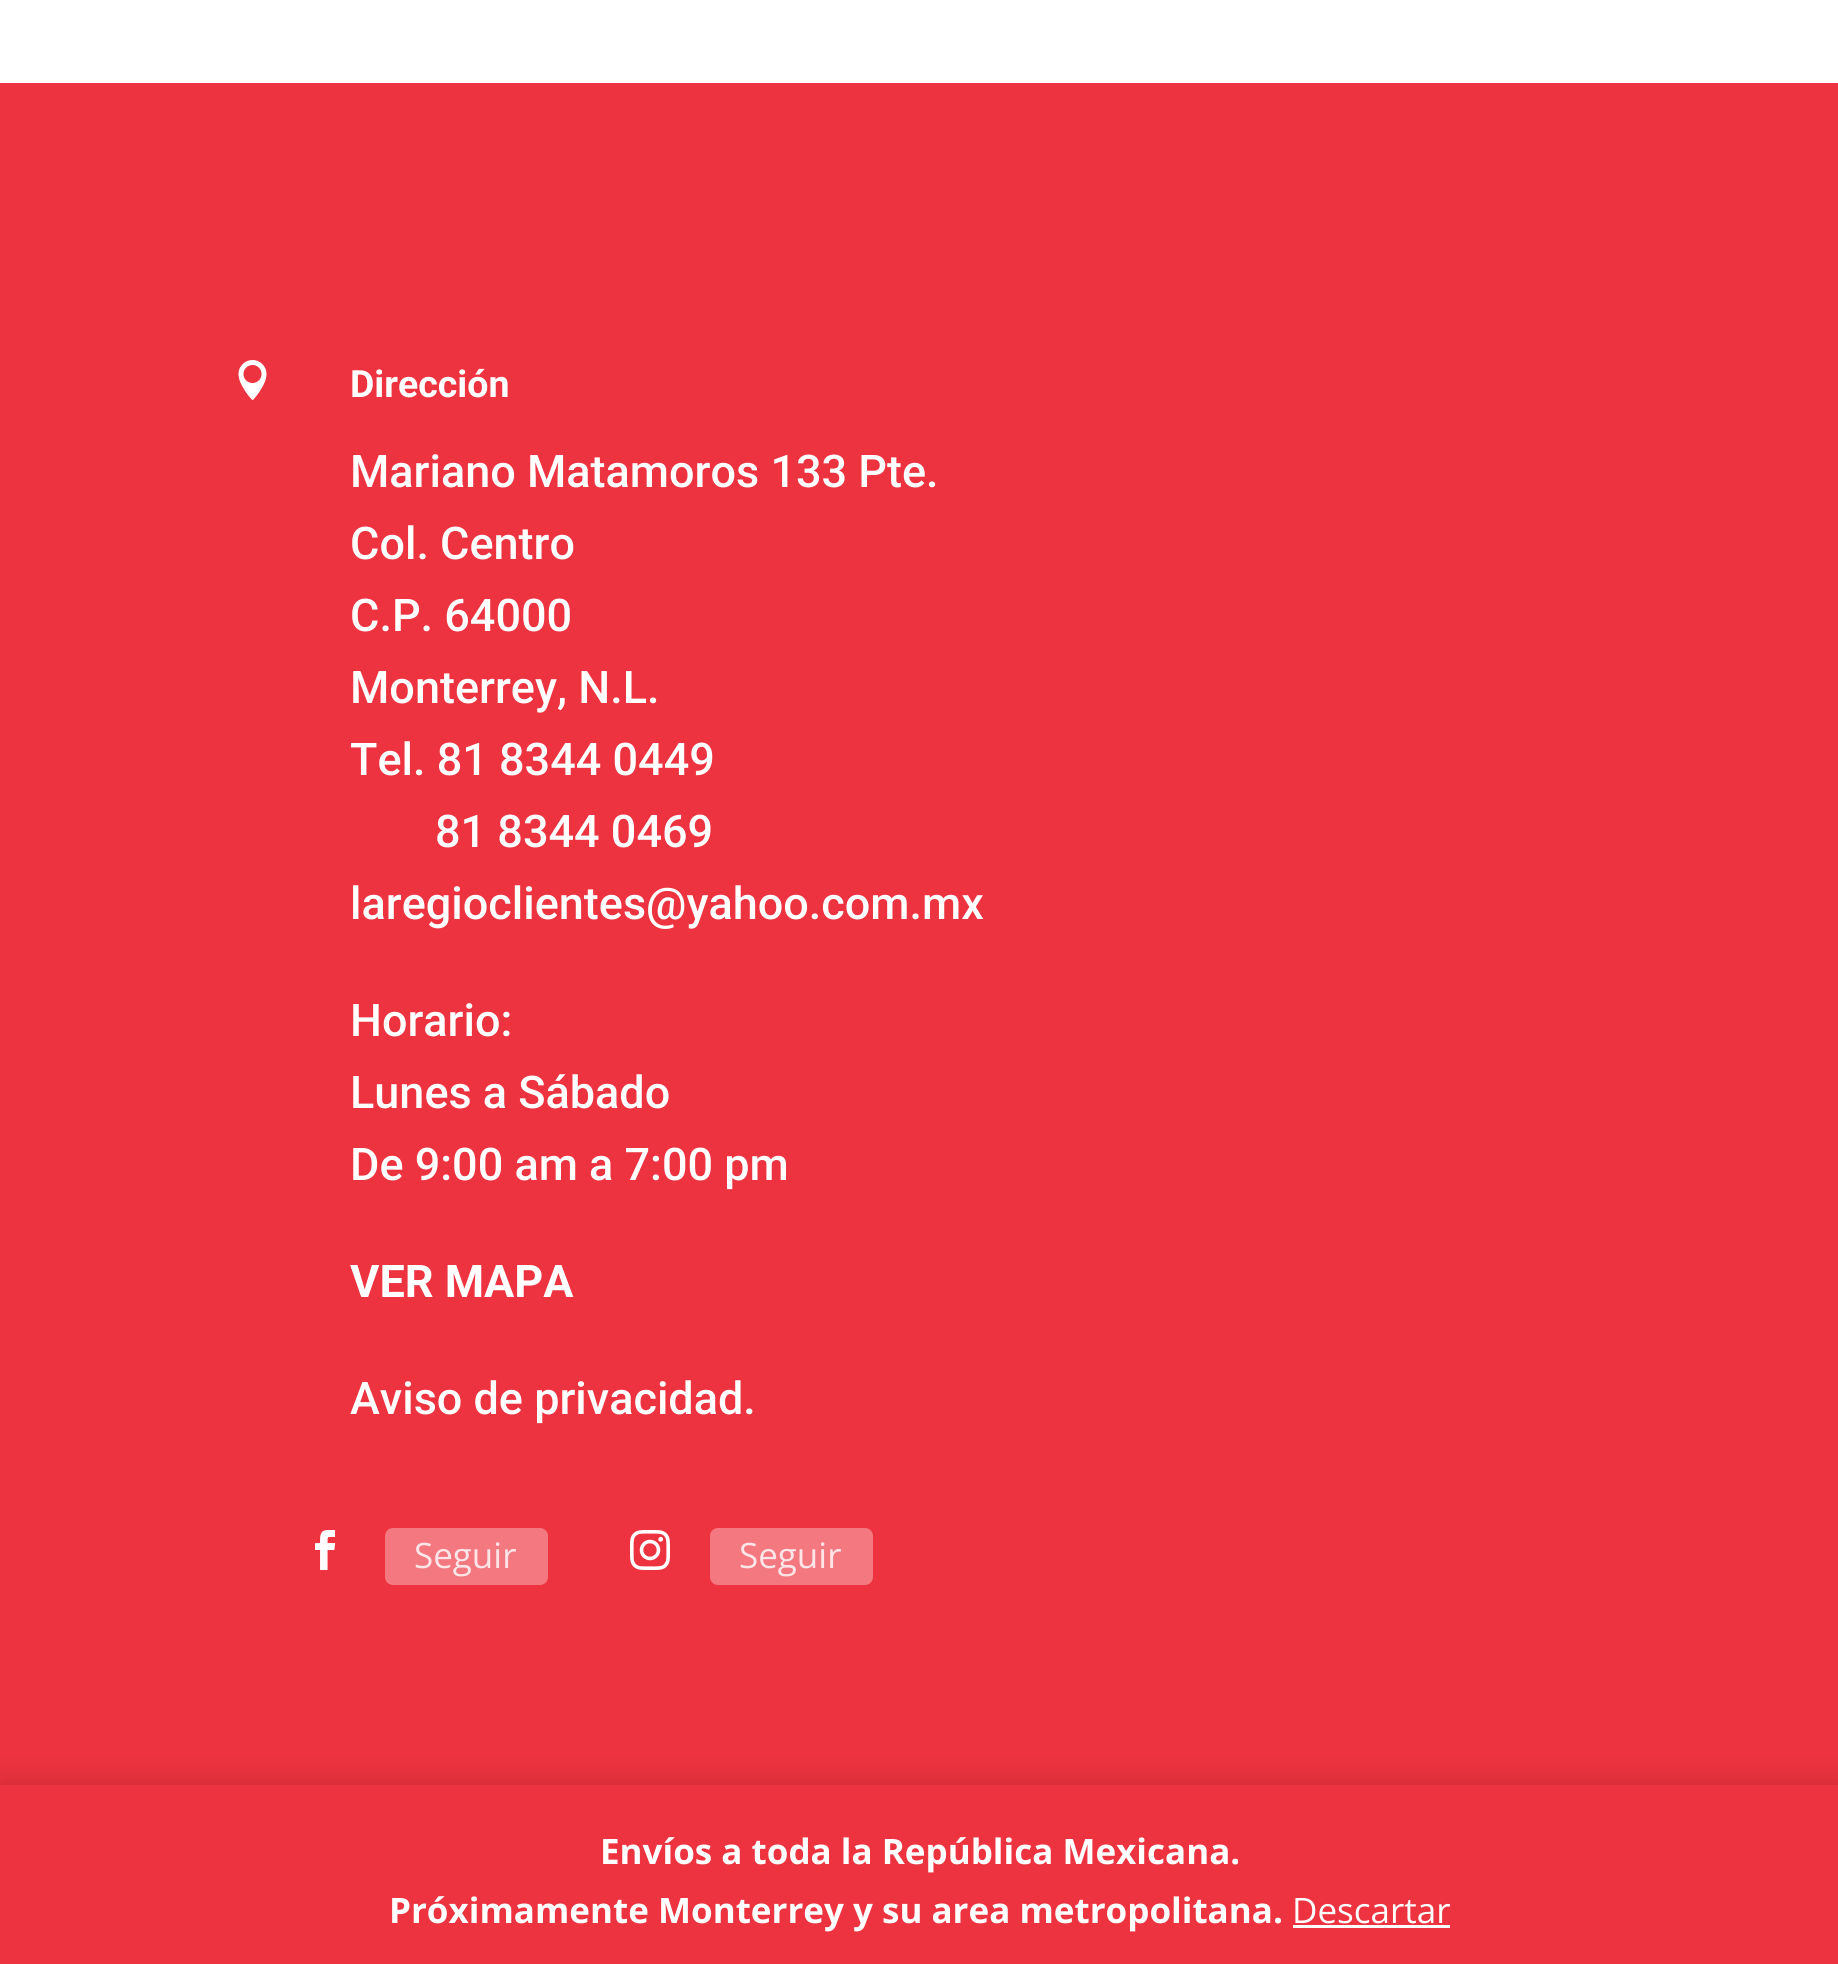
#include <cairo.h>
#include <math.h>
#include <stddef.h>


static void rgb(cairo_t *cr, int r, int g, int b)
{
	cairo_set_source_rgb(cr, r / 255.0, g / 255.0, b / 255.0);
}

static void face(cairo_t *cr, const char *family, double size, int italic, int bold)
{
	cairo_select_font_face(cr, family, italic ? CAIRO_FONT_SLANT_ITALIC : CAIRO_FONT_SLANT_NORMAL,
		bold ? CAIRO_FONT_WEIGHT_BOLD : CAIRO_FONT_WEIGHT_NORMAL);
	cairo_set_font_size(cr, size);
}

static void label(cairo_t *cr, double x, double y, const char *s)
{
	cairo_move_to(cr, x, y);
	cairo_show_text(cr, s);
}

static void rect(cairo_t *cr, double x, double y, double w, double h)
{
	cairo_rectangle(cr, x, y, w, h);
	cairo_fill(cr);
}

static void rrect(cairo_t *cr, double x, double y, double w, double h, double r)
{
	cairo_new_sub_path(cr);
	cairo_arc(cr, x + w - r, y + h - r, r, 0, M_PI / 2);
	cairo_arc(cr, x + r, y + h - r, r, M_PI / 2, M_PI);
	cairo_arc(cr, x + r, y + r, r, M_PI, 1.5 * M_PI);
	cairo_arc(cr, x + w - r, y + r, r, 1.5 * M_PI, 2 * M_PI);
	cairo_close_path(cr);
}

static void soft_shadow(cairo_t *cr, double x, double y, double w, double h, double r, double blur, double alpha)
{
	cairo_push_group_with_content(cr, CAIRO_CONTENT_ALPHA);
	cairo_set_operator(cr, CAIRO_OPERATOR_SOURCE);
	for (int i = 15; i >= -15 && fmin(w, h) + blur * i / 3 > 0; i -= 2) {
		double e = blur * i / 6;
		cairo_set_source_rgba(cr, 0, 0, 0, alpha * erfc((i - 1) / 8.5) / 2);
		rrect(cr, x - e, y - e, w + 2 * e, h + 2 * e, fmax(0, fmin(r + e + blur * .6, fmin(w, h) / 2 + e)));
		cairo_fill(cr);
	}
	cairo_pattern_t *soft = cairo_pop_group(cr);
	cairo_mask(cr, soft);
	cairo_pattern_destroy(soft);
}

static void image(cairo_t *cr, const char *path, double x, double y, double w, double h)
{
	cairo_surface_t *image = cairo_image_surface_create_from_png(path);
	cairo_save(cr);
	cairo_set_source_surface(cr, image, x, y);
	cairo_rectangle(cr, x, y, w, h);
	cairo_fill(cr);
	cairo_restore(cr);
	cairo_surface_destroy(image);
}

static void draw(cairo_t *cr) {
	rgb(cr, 255, 255, 255);
	cairo_paint(cr);
	rgb(cr, 237, 51, 63);
	rect(cr, 0, 83, 1838, 1702);
	image(cr, "image0.png", 238, 360, 29, 40);
	face(cr, "Roboto", 37.5, 0, 1);
	rgb(cr, 255, 255, 255);
	label(cr, 350, 397, "Dirección");
	face(cr, "Roboto Medium", 45, 0, 0);
	label(cr, 350, 487, "Mariano Matamoros 133 Pte.");
	label(cr, 350, 559, "Col. Centro");
	label(cr, 350, 631, "C.P. 64000");
	label(cr, 350, 703, "Monterrey, N.L.");
	label(cr, 350, 775, "Tel. 81 8344 0449");
	label(cr, 435, 847, "81 8344 0469");
	label(cr, 350, 919, "laregioclientes@yahoo.com.mx");
	label(cr, 350, 1036, "Horario:");
	label(cr, 350, 1108, "Lunes a Sábado");
	label(cr, 350, 1180, "De 9:00 am a 7:00 pm");
	face(cr, "Roboto", 45, 0, 1);
	label(cr, 350, 1297, "VER MAPA");
	face(cr, "Roboto Medium", 45, 0, 0);
	label(cr, 350, 1414, "Aviso de privacidad.");
	image(cr, "image1.png", 315, 1530, 21, 40);
	rgb(cr, 243, 120, 128);
	rrect(cr, 385, 1528, 163, 57, 8);
	cairo_fill(cr);
	face(cr, "Open Sans", 35, 0, 0);
	rgb(cr, 253, 228, 230);
	label(cr, 414, 1568, "Seguir");
	image(cr, "image2.png", 630, 1530, 40, 40);
	rgb(cr, 243, 120, 128);
	rrect(cr, 710, 1528, 163, 57, 8);
	cairo_fill(cr);
	rgb(cr, 253, 228, 230);
	label(cr, 739, 1568, "Seguir");
	rgb(cr, 0, 0, 0);
	soft_shadow(cr, 0, 1788, 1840, 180, 0, 17.5, 0.2);
	rgb(cr, 237, 51, 63);
	rect(cr, 0, 1785, 1838, 179);
	face(cr, "Open Sans", 35, 0, 1);
	rgb(cr, 255, 255, 255);
	label(cr, 600, 1864, "Envíos a toda la República Mexicana.");
	label(cr, 389, 1923, "Próximamente Monterrey y su area metropolitana.");
	face(cr, "Open Sans", 35, 0, 0);
	label(cr, 1292, 1923, "Descartar");
	rect(cr, 1293, 1925, 157, 3);
}

int main(void) {
	cairo_surface_t *surface = cairo_image_surface_create(CAIRO_FORMAT_RGB24, 1838, 1964);
	cairo_t *cr = cairo_create(surface);
	cairo_font_options_t *options = cairo_font_options_create();
	cairo_font_options_set_hint_metrics(options, CAIRO_HINT_METRICS_OFF);
	cairo_font_options_set_hint_style(options, CAIRO_HINT_STYLE_NONE);
	cairo_set_font_options(cr, options);
	cairo_set_miter_limit(cr, 4);
	draw(cr);
	cairo_surface_write_to_png(surface, "render.png");
	cairo_font_options_destroy(options);
	cairo_destroy(cr);
	cairo_surface_destroy(surface);
	return 0;
}
